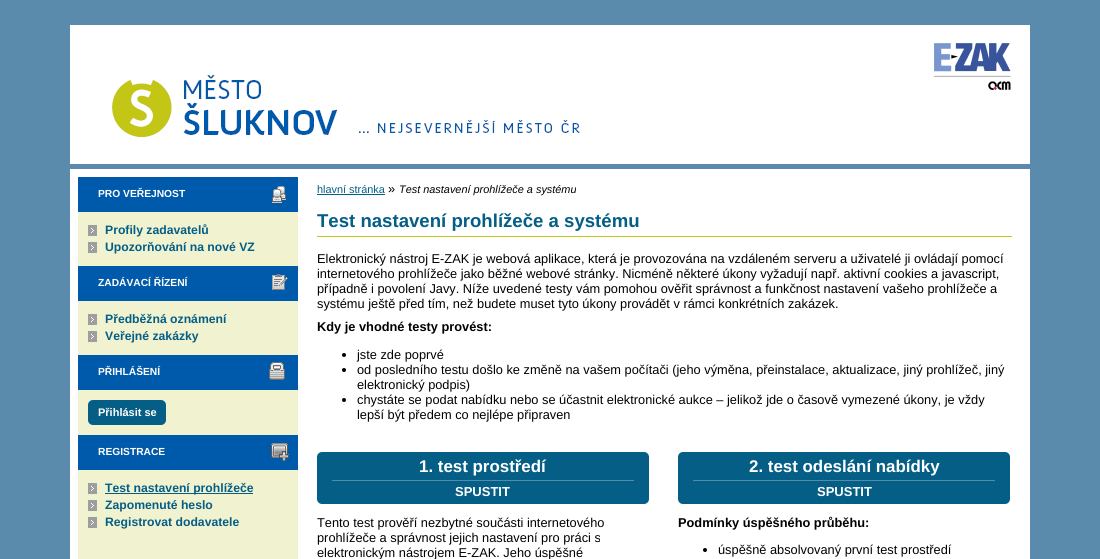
#include <cairo.h>
#include <math.h>
#include <stddef.h>


static void rgb(cairo_t *cr, int r, int g, int b)
{
	cairo_set_source_rgb(cr, r / 255.0, g / 255.0, b / 255.0);
}

static void face(cairo_t *cr, const char *family, double size, int italic, int bold)
{
	cairo_select_font_face(cr, family, italic ? CAIRO_FONT_SLANT_ITALIC : CAIRO_FONT_SLANT_NORMAL,
		bold ? CAIRO_FONT_WEIGHT_BOLD : CAIRO_FONT_WEIGHT_NORMAL);
	cairo_set_font_size(cr, size);
}

static void label(cairo_t *cr, double x, double y, const char *s)
{
	cairo_move_to(cr, x, y);
	cairo_show_text(cr, s);
}

static void rect(cairo_t *cr, double x, double y, double w, double h)
{
	cairo_rectangle(cr, x, y, w, h);
	cairo_fill(cr);
}

static void rrect(cairo_t *cr, double x, double y, double w, double h, double r)
{
	cairo_new_sub_path(cr);
	cairo_arc(cr, x + w - r, y + h - r, r, 0, M_PI / 2);
	cairo_arc(cr, x + r, y + h - r, r, M_PI / 2, M_PI);
	cairo_arc(cr, x + r, y + r, r, M_PI, 1.5 * M_PI);
	cairo_arc(cr, x + w - r, y + r, r, 1.5 * M_PI, 2 * M_PI);
	cairo_close_path(cr);
}

static void image(cairo_t *cr, const char *path, double x, double y, double w, double h)
{
	cairo_surface_t *image = cairo_image_surface_create_from_png(path);
	cairo_save(cr);
	cairo_set_source_surface(cr, image, x, y);
	cairo_rectangle(cr, x, y, w, h);
	cairo_fill(cr);
	cairo_restore(cr);
	cairo_surface_destroy(image);
}

static void draw(cairo_t *cr) {
	rgb(cr, 90, 139, 173);
	cairo_paint(cr);
	image(cr, "image0.png", 70, 25, 960, 139);
	image(cr, "image1.png", 934, 43, 77, 47);
	rgb(cr, 255, 255, 255);
	rect(cr, 70, 169, 960, 390);
	rgb(cr, 241, 242, 208);
	rect(cr, 78, 212, 220, 347);
	rgb(cr, 0, 90, 171);
	rect(cr, 78, 177, 220, 35);
	image(cr, "image2.png", 272, 186, 14, 17);
	face(cr, "Liberation Sans", 10.25, 0, 1);
	rgb(cr, 255, 255, 255);
	label(cr, 98, 197, "PRO VEŘEJNOST");
	image(cr, "image3.png", 88, 225, 9, 11);
	face(cr, "Liberation Sans", 12.2, 0, 1);
	rgb(cr, 4, 94, 134);
	label(cr, 105, 234, "Profily zadavatelů");
	image(cr, "image3.png", 88, 242, 9, 11);
	label(cr, 105, 251, "Upozorňování na nové VZ");
	rgb(cr, 0, 90, 171);
	rect(cr, 78, 266, 220, 35);
	image(cr, "image4.png", 272, 274, 16, 16);
	face(cr, "Liberation Sans", 10.25, 0, 1);
	rgb(cr, 255, 255, 255);
	label(cr, 98, 286, "ZADÁVACÍ ŘÍZENÍ");
	image(cr, "image3.png", 88, 314, 9, 11);
	face(cr, "Liberation Sans", 12.2, 0, 1);
	rgb(cr, 4, 94, 134);
	label(cr, 105, 323, "Předběžná oznámení");
	image(cr, "image3.png", 88, 331, 9, 11);
	label(cr, 105, 340, "Veřejné zakázky");
	rgb(cr, 0, 90, 171);
	rect(cr, 78, 355, 220, 35);
	image(cr, "image5.png", 269, 362, 16, 18);
	face(cr, "Liberation Sans", 10.25, 0, 1);
	rgb(cr, 255, 255, 255);
	label(cr, 98, 375, "PŘIHLÁŠENÍ");
	rgb(cr, 4, 94, 134);
	rrect(cr, 88, 400, 78, 25, 5);
	cairo_fill(cr);
	face(cr, "Liberation Sans", 11, 0, 1);
	rgb(cr, 255, 255, 255);
	label(cr, 98, 416, "Přihlásit se");
	rgb(cr, 0, 90, 171);
	rect(cr, 78, 435, 220, 35);
	image(cr, "image6.png", 271, 443, 18, 18);
	face(cr, "Liberation Sans", 10.25, 0, 1);
	rgb(cr, 255, 255, 255);
	label(cr, 98, 455, "REGISTRACE");
	image(cr, "image3.png", 88, 483, 9, 11);
	rgb(cr, 4, 94, 134);
	rect(cr, 105, 493, 148, 1);
	face(cr, "Liberation Sans", 12.2, 0, 1);
	label(cr, 105, 492, "Test nastavení prohlížeče");
	image(cr, "image3.png", 88, 500, 9, 11);
	label(cr, 105, 509, "Zapomenuté heslo");
	image(cr, "image3.png", 88, 517, 9, 11);
	label(cr, 105, 526, "Registrovat dodavatele");
	face(cr, "Liberation Sans", 10.9, 0, 0);
	label(cr, 317, 193, "hlavní stránka");
	rect(cr, 317, 194, 68, 1);
	face(cr, "Liberation Sans", 12.8, 0, 0);
	rgb(cr, 0, 0, 0);
	label(cr, 388, 193, "»");
	face(cr, "Liberation Sans", 10.9, 1, 0);
	label(cr, 399, 193, "Test nastavení prohlížeče a systému");
	rgb(cr, 196, 198, 22);
	rect(cr, 317, 236, 695, 1);
	face(cr, "Liberation Sans", 18.6, 0, 1);
	rgb(cr, 4, 94, 134);
	label(cr, 317, 227, "Test nastavení prohlížeče a systému");
	face(cr, "Liberation Sans", 12.8, 0, 0);
	rgb(cr, 0, 0, 0);
	label(cr, 317, 263, "Elektronický nástroj E-ZAK je webová aplikace, která je provozována na vzdáleném serveru a uživatelé ji ovládají pomocí");
	label(cr, 317, 278, "internetového prohlížeče jako běžné webové stránky. Nicméně některé úkony vyžadují např. aktivní cookies a javascript,");
	label(cr, 317, 293, "případně i povolení Javy. Níže uvedené testy vám pomohou ověřit správnost a funkčnost nastavení vašeho prohlížeče a");
	label(cr, 317, 308, "systému ještě před tím, než budete muset tyto úkony provádět v rámci konkrétních zakázek.");
	face(cr, "Liberation Sans", 12.8, 0, 1);
	label(cr, 317, 331, "Kdy je vhodné testy provést:");
	cairo_new_path(cr);
	cairo_arc(cr, 344, 355, 2, 0, 2 * M_PI);
	cairo_fill(cr);
	face(cr, "Liberation Sans", 12.8, 0, 0);
	label(cr, 357, 359, "jste zde poprvé");
	cairo_new_path(cr);
	cairo_arc(cr, 344, 370, 2, 0, 2 * M_PI);
	cairo_fill(cr);
	label(cr, 357, 374, "od posledního testu došlo ke změně na vašem počítači (jeho výměna, přeinstalace, aktualizace, jiný prohlížeč, jiný");
	label(cr, 357, 389, "elektronický podpis)");
	cairo_new_path(cr);
	cairo_arc(cr, 344, 400, 2, 0, 2 * M_PI);
	cairo_fill(cr);
	label(cr, 357, 404, "chystáte se podat nabídku nebo se účastnit elektronické aukce – jelikož jde o časově vymezené úkony, je vždy");
	label(cr, 357, 419, "lepší být předem co nejlépe připraven");
	rgb(cr, 4, 94, 134);
	rrect(cr, 317, 452, 332, 52, 5);
	cairo_fill(cr);
	face(cr, "Liberation Sans", 16.9, 0, 1);
	rgb(cr, 255, 255, 255);
	label(cr, 419, 472, "1. test prostředí");
	rgb(cr, 79, 142, 170);
	rect(cr, 332, 480, 302, 1);
	face(cr, "Liberation Sans", 13, 0, 1);
	rgb(cr, 255, 255, 255);
	label(cr, 455, 496, "SPUSTIT");
	face(cr, "Liberation Sans", 12.8, 0, 0);
	rgb(cr, 0, 0, 0);
	label(cr, 317, 527, "Tento test prověří nezbytné součásti internetového");
	label(cr, 317, 542, "prohlížeče a správnost jejich nastavení pro práci s");
	label(cr, 317, 557, "elektronickým nástrojem E-ZAK. Jeho úspěšné");
	rgb(cr, 4, 94, 134);
	rrect(cr, 678, 452, 332, 52, 5);
	cairo_fill(cr);
	face(cr, "Liberation Sans", 16.9, 0, 1);
	rgb(cr, 255, 255, 255);
	label(cr, 749, 472, "2. test odeslání nabídky");
	rgb(cr, 79, 142, 170);
	rect(cr, 693, 480, 302, 1);
	face(cr, "Liberation Sans", 13, 0, 1);
	rgb(cr, 255, 255, 255);
	label(cr, 817, 496, "SPUSTIT");
	face(cr, "Liberation Sans", 12.8, 0, 1);
	rgb(cr, 0, 0, 0);
	label(cr, 678, 527, "Podmínky úspěšného průběhu:");
	cairo_new_path(cr);
	cairo_arc(cr, 705, 550, 2, 0, 2 * M_PI);
	cairo_fill(cr);
	face(cr, "Liberation Sans", 12.8, 0, 0);
	label(cr, 718, 554, "úspěšně absolvovaný první test prostředí");
}

int main(void) {
	cairo_surface_t *surface = cairo_image_surface_create(CAIRO_FORMAT_RGB24, 1100, 559);
	cairo_t *cr = cairo_create(surface);
	cairo_font_options_t *options = cairo_font_options_create();
	cairo_font_options_set_hint_metrics(options, CAIRO_HINT_METRICS_OFF);
	cairo_font_options_set_hint_style(options, CAIRO_HINT_STYLE_NONE);
	cairo_set_font_options(cr, options);
	cairo_set_miter_limit(cr, 4);
	draw(cr);
	cairo_surface_write_to_png(surface, "render.png");
	cairo_font_options_destroy(options);
	cairo_destroy(cr);
	cairo_surface_destroy(surface);
	return 0;
}
